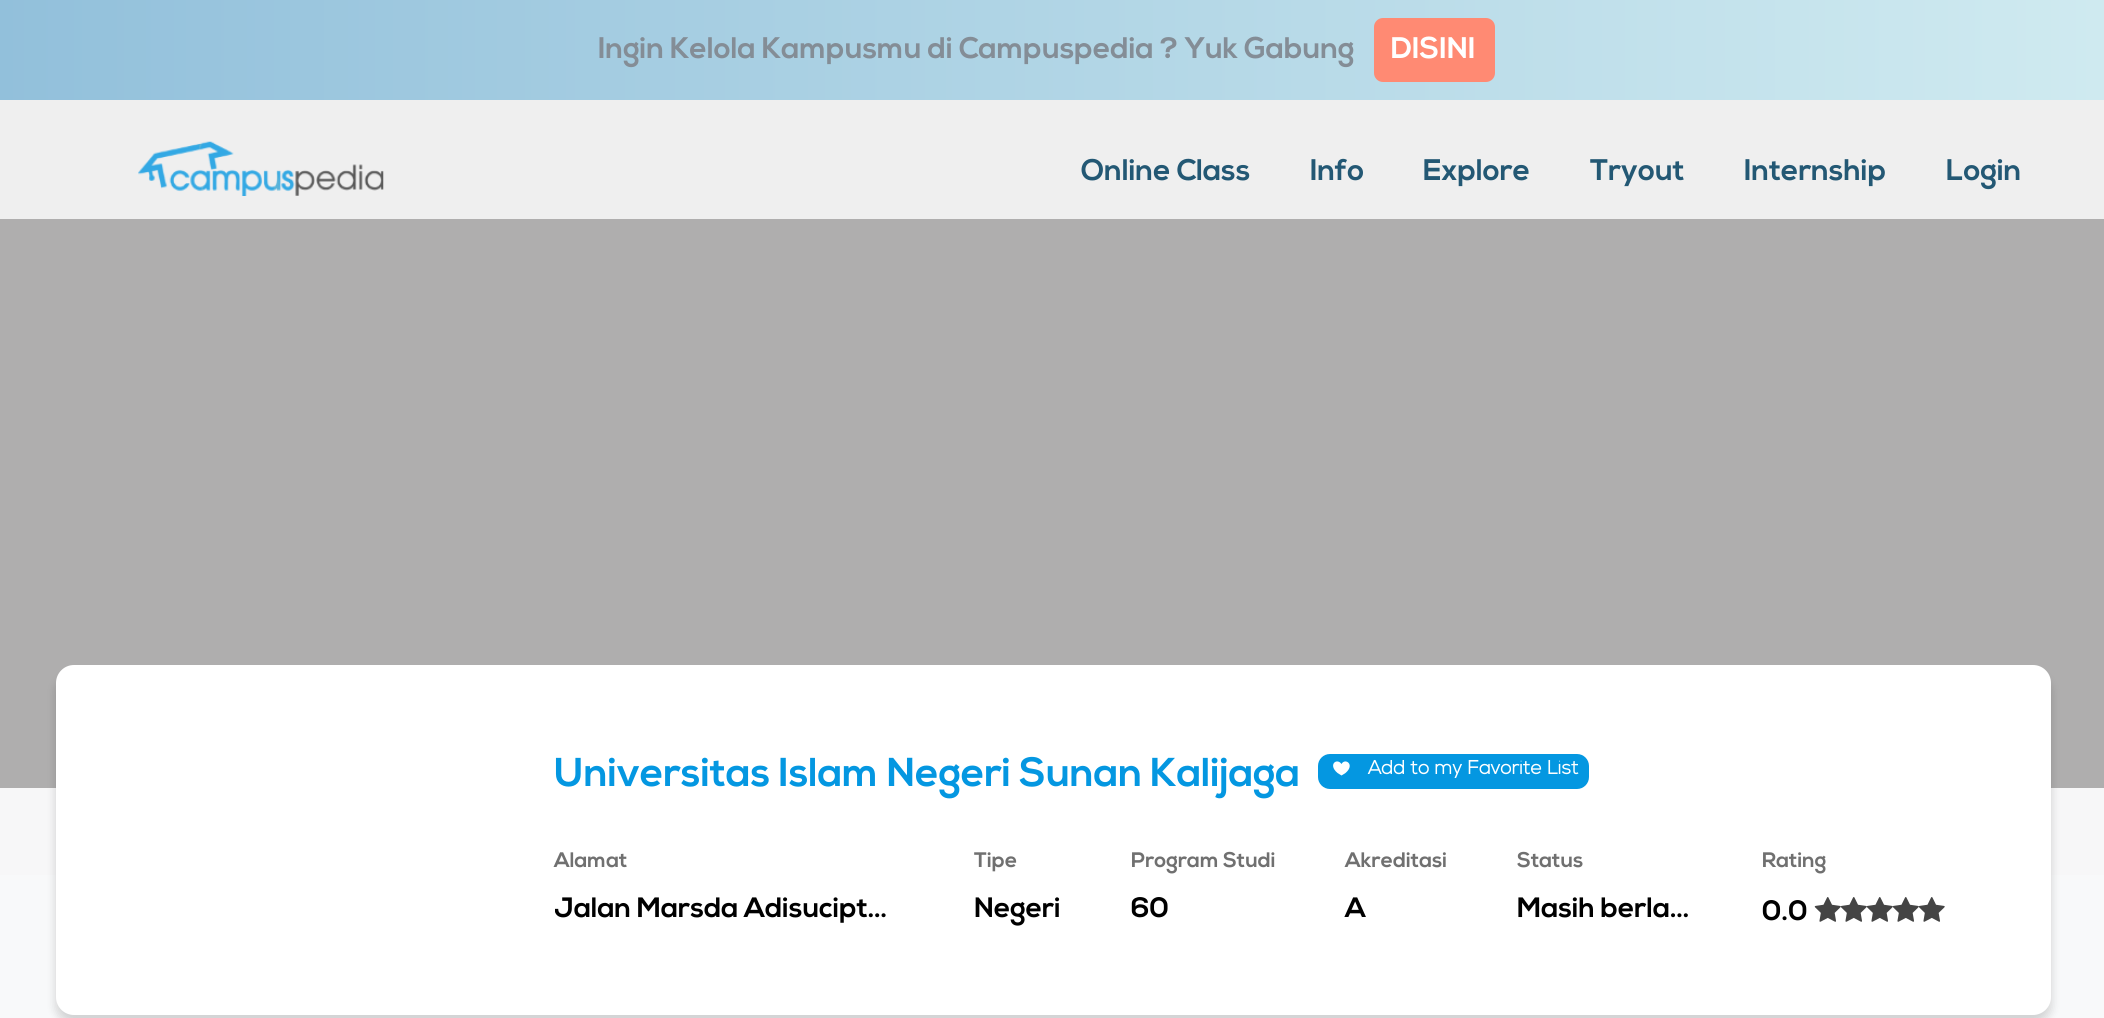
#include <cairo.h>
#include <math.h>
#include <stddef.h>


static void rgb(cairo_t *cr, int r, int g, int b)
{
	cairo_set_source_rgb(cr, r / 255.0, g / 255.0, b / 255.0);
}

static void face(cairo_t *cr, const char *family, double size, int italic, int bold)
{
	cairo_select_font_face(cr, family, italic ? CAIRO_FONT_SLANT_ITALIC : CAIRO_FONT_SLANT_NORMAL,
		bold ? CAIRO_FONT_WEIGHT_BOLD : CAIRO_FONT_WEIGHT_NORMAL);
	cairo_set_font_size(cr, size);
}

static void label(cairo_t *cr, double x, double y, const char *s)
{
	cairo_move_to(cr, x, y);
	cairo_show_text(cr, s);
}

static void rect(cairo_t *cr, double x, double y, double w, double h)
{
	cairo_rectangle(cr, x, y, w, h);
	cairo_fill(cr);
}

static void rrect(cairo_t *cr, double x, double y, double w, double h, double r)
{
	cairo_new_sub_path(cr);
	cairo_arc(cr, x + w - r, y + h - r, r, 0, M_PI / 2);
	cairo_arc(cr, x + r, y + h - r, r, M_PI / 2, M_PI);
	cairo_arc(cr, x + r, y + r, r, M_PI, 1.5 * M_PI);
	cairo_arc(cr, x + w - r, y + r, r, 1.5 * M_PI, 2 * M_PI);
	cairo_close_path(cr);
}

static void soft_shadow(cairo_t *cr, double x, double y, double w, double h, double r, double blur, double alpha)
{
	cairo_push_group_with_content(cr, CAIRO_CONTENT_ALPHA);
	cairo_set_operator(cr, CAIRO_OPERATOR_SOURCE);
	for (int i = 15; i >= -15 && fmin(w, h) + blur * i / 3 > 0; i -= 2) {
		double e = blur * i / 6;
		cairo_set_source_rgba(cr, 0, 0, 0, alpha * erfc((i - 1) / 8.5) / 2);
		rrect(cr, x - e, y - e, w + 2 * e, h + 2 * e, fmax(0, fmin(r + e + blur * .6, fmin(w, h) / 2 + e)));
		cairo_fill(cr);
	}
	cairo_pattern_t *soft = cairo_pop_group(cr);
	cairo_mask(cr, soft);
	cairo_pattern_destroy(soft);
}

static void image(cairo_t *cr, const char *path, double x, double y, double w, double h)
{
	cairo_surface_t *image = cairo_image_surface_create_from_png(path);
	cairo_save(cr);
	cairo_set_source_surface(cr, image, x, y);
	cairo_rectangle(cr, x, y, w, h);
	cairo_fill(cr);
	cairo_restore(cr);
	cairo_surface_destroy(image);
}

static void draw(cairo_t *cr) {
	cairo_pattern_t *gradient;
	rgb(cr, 175, 174, 174);
	cairo_paint(cr);
	gradient = cairo_pattern_create_linear(0, 50, 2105, 50);
	cairo_pattern_add_color_stop_rgba(gradient, 0, 0.573, 0.753, 0.859, 1);
	cairo_pattern_add_color_stop_rgba(gradient, 1, 0.812, 0.918, 0.941, 1);
	cairo_set_source(cr, gradient);
	cairo_pattern_destroy(gradient);
	rect(cr, 0, 0, 2104, 100);
	face(cr, "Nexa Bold", 29.75, 0, 1);
	rgb(cr, 132, 141, 150);
	label(cr, 598, 58, "Ingin Kelola Kampusmu di Campuspedia ? Yuk Gabung");
	rgb(cr, 255, 138, 115);
	rrect(cr, 1374, 18, 121, 64, 9);
	cairo_fill(cr);
	rgb(cr, 255, 255, 255);
	label(cr, 1391, 58, "DISINI");
	rgb(cr, 239, 239, 239);
	rect(cr, 0, 100, 2104, 119);
	image(cr, "image0.png", 138, 141, 246, 55);
	rgb(cr, 35, 88, 116);
	label(cr, 1081, 180, "Online Class");
	label(cr, 1310, 180, "Info");
	label(cr, 1423, 180, "Explore");
	label(cr, 1590, 180, "Tryout");
	label(cr, 1744, 180, "Internship");
	label(cr, 1946, 180, "Login");
	rgb(cr, 248, 249, 250);
	rect(cr, 0, 875, 2104, 143);
	rgb(cr, 247, 247, 248);
	rect(cr, 0, 788, 2104, 87);
	rgb(cr, 0, 0, 0);
	soft_shadow(cr, 56, 674, 1995, 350, 18, 5, 0.16);
	rgb(cr, 255, 255, 255);
	rrect(cr, 56, 665, 1995, 350, 18);
	cairo_fill(cr);
	face(cr, "Nexa Bold", 40.25, 0, 1);
	rgb(cr, 4, 151, 225);
	label(cr, 554, 786, "Universitas Islam Negeri Sunan Kalijaga");
	rrect(cr, 1318, 754, 271, 35, 12);
	cairo_fill(cr);
	rgb(cr, 255, 255, 255);
	cairo_new_path(cr);
	cairo_move_to(cr, 1341.5, 764);
	cairo_curve_to(cr, 1345, 757.5, 1355.5, 764.5, 1345.5, 773);
	cairo_line_to(cr, 1341.5, 775.5);
	cairo_line_to(cr, 1337.5, 773);
	cairo_curve_to(cr, 1327.5, 764.5, 1337, 757.5, 1341.5, 764);
	cairo_close_path(cr);
	cairo_fill(cr);
	face(cr, "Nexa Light", 19.25, 0, 1);
	label(cr, 1368, 774, "Add to my Favorite List");
	face(cr, "Nexa Bold", 21, 0, 1);
	rgb(cr, 112, 112, 112);
	label(cr, 554, 867, "Alamat");
	cairo_save(cr);
	cairo_rectangle(cr, 555, 889, 350, 46);
	cairo_clip(cr);
	face(cr, "Nexa Bold", 28, 0, 1);
	rgb(cr, 0, 0, 0);
	label(cr, 554, 917, "Jalan Marsda Adisucipt…");
	cairo_restore(cr);
	label(cr, 974, 867, "Tipe");
	face(cr, "Nexa Bold", 28, 0, 1);
	rgb(cr, 0, 0, 0);
	label(cr, 974, 917, "Negeri");
	face(cr, "Nexa Bold", 21, 0, 1);
	rgb(cr, 112, 112, 112);
	label(cr, 1131, 867, "Program Studi");
	face(cr, "Nexa Bold", 28, 0, 1);
	rgb(cr, 0, 0, 0);
	label(cr, 1131, 917, "60");
	face(cr, "Nexa Bold", 21, 0, 1);
	rgb(cr, 112, 112, 112);
	label(cr, 1345, 867, "Akreditasi");
	face(cr, "Nexa Bold", 28, 0, 1);
	rgb(cr, 0, 0, 0);
	label(cr, 1345, 917, "A");
	face(cr, "Nexa Bold", 21, 0, 1);
	rgb(cr, 112, 112, 112);
	label(cr, 1517, 867, "Status");
	face(cr, "Nexa Bold", 28, 0, 1);
	rgb(cr, 0, 0, 0);
	label(cr, 1517, 917, "Masih berla…");
	face(cr, "Nexa Bold", 21, 0, 1);
	rgb(cr, 112, 112, 112);
	label(cr, 1762, 867, "Rating");
	face(cr, "Nexa Bold", 28, 0, 1);
	rgb(cr, 0, 0, 0);
	label(cr, 1762, 920, "0.0");
	image(cr, "image1.png", 1814, 897, 131, 25);
}

int main(void) {
	cairo_surface_t *surface = cairo_image_surface_create(CAIRO_FORMAT_RGB24, 2104, 1018);
	cairo_t *cr = cairo_create(surface);
	cairo_font_options_t *options = cairo_font_options_create();
	cairo_font_options_set_hint_metrics(options, CAIRO_HINT_METRICS_OFF);
	cairo_font_options_set_hint_style(options, CAIRO_HINT_STYLE_NONE);
	cairo_set_font_options(cr, options);
	cairo_set_miter_limit(cr, 4);
	draw(cr);
	cairo_surface_write_to_png(surface, "render.png");
	cairo_font_options_destroy(options);
	cairo_destroy(cr);
	cairo_surface_destroy(surface);
	return 0;
}
